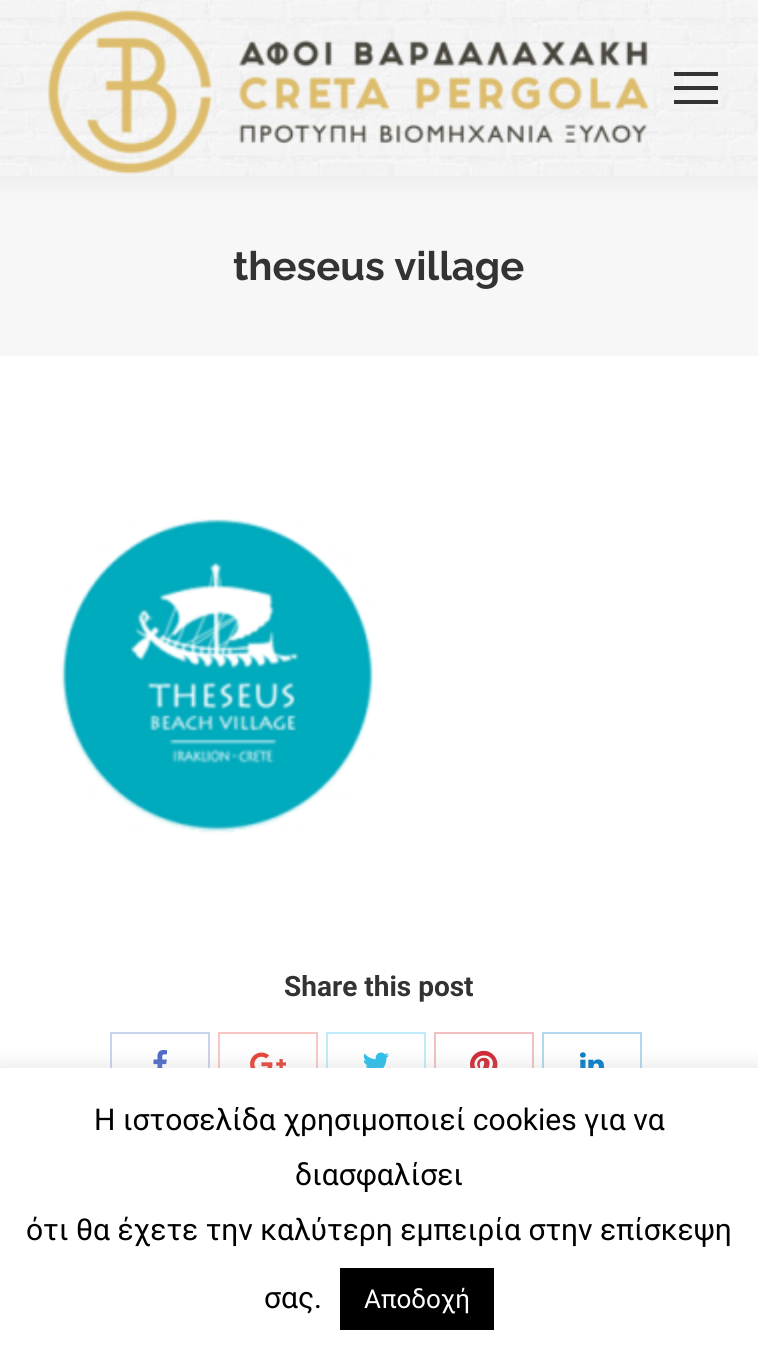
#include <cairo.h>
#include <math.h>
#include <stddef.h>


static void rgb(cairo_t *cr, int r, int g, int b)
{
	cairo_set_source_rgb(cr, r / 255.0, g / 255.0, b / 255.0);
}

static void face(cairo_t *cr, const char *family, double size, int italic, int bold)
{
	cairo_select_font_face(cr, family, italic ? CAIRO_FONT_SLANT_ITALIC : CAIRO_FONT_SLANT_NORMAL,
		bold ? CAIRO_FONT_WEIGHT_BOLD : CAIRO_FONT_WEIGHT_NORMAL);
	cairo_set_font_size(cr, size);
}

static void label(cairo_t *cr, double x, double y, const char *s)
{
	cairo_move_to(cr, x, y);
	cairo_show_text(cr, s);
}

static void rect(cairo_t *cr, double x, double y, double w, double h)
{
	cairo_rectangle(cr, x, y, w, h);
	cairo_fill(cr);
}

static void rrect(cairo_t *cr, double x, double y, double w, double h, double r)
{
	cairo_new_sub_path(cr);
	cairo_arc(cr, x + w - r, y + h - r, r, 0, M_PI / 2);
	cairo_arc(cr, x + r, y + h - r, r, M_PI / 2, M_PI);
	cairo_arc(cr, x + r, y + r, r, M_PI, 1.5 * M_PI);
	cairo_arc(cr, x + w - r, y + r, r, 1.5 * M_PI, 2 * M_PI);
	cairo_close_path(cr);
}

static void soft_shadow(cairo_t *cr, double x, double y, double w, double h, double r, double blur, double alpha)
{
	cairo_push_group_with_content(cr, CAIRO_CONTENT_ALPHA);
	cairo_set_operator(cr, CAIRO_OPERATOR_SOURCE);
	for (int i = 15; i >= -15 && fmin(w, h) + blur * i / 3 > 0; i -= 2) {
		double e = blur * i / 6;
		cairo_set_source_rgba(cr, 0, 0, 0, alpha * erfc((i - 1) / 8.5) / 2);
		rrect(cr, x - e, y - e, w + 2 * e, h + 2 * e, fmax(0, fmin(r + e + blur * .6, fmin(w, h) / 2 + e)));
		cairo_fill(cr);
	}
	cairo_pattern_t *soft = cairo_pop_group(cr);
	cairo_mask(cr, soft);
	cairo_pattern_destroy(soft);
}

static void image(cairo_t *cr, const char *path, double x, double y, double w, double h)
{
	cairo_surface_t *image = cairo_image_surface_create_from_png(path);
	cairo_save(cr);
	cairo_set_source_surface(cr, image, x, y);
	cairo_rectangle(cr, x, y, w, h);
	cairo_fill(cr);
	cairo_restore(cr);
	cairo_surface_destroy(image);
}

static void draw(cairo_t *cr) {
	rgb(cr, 255, 255, 255);
	cairo_paint(cr);
	rgb(cr, 247, 247, 247);
	rect(cr, 0, 176, 758, 180);
	rgb(cr, 0, 0, 0);
	soft_shadow(cr, -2, -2, 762, 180, 0, 15, 0.07);
	image(cr, "image0.png", 0, 0, 758, 176);
	image(cr, "image1.png", 47, 10, 602, 165);
	rgb(cr, 51, 51, 51);
	rect(cr, 674, 86, 44, 4);
	rect(cr, 674, 72, 44, 4);
	rect(cr, 674, 100, 44, 4);
	face(cr, "Raleway", 40, 0, 1);
	label(cr, 233, 280, "theseus village");
	image(cr, "image2.png", 60, 519, 314, 314);
	face(cr, "Roboto", 28, 0, 1);
	label(cr, 284, 996, "Share this post");
	cairo_rectangle(cr, 111, 1033, 98, 58);
	rgb(cr, 201, 210, 238);
	cairo_stroke(cr);
	image(cr, "image3.png", 153, 1050, 14, 18);
	cairo_rectangle(cr, 219, 1033, 98, 58);
	rgb(cr, 248, 198, 194);
	cairo_stroke(cr);
	image(cr, "image4.png", 250, 1052, 36, 16);
	cairo_rectangle(cr, 327, 1033, 98, 58);
	rgb(cr, 191, 236, 249);
	cairo_stroke(cr);
	image(cr, "image5.png", 363, 1052, 26, 16);
	cairo_rectangle(cr, 435, 1033, 98, 58);
	rgb(cr, 241, 191, 194);
	cairo_stroke(cr);
	image(cr, "image6.png", 470, 1050, 28, 18);
	cairo_rectangle(cr, 543, 1033, 98, 58);
	rgb(cr, 179, 215, 238);
	cairo_stroke(cr);
	image(cr, "image7.png", 580, 1052, 24, 16);
	rgb(cr, 172, 171, 171);
	soft_shadow(cr, 0, 1066, 758, 286, 0, 10, 0.3);
	rgb(cr, 255, 255, 255);
	rect(cr, 0, 1068, 758, 286);
	face(cr, "Roboto", 30, 0, 0);
	rgb(cr, 0, 0, 0);
	label(cr, 94, 1130, "Η ιστοσελίδα χρησιμοποιεί cookies για να");
	label(cr, 295, 1185, "διασφαλίσει");
	label(cr, 26, 1240, "ότι θα έχετε την καλύτερη εμπειρία στην επίσκεψη");
	label(cr, 264, 1308, "σας.");
	rect(cr, 340, 1268, 154, 62);
	face(cr, "Roboto", 26, 0, 0);
	rgb(cr, 255, 255, 255);
	label(cr, 364, 1308, "Αποδοχή");
}

int main(void) {
	cairo_surface_t *surface = cairo_image_surface_create(CAIRO_FORMAT_RGB24, 758, 1354);
	cairo_t *cr = cairo_create(surface);
	cairo_font_options_t *options = cairo_font_options_create();
	cairo_font_options_set_hint_metrics(options, CAIRO_HINT_METRICS_OFF);
	cairo_font_options_set_hint_style(options, CAIRO_HINT_STYLE_NONE);
	cairo_set_font_options(cr, options);
	cairo_set_miter_limit(cr, 4);
	draw(cr);
	cairo_surface_write_to_png(surface, "render.png");
	cairo_font_options_destroy(options);
	cairo_destroy(cr);
	cairo_surface_destroy(surface);
	return 0;
}
